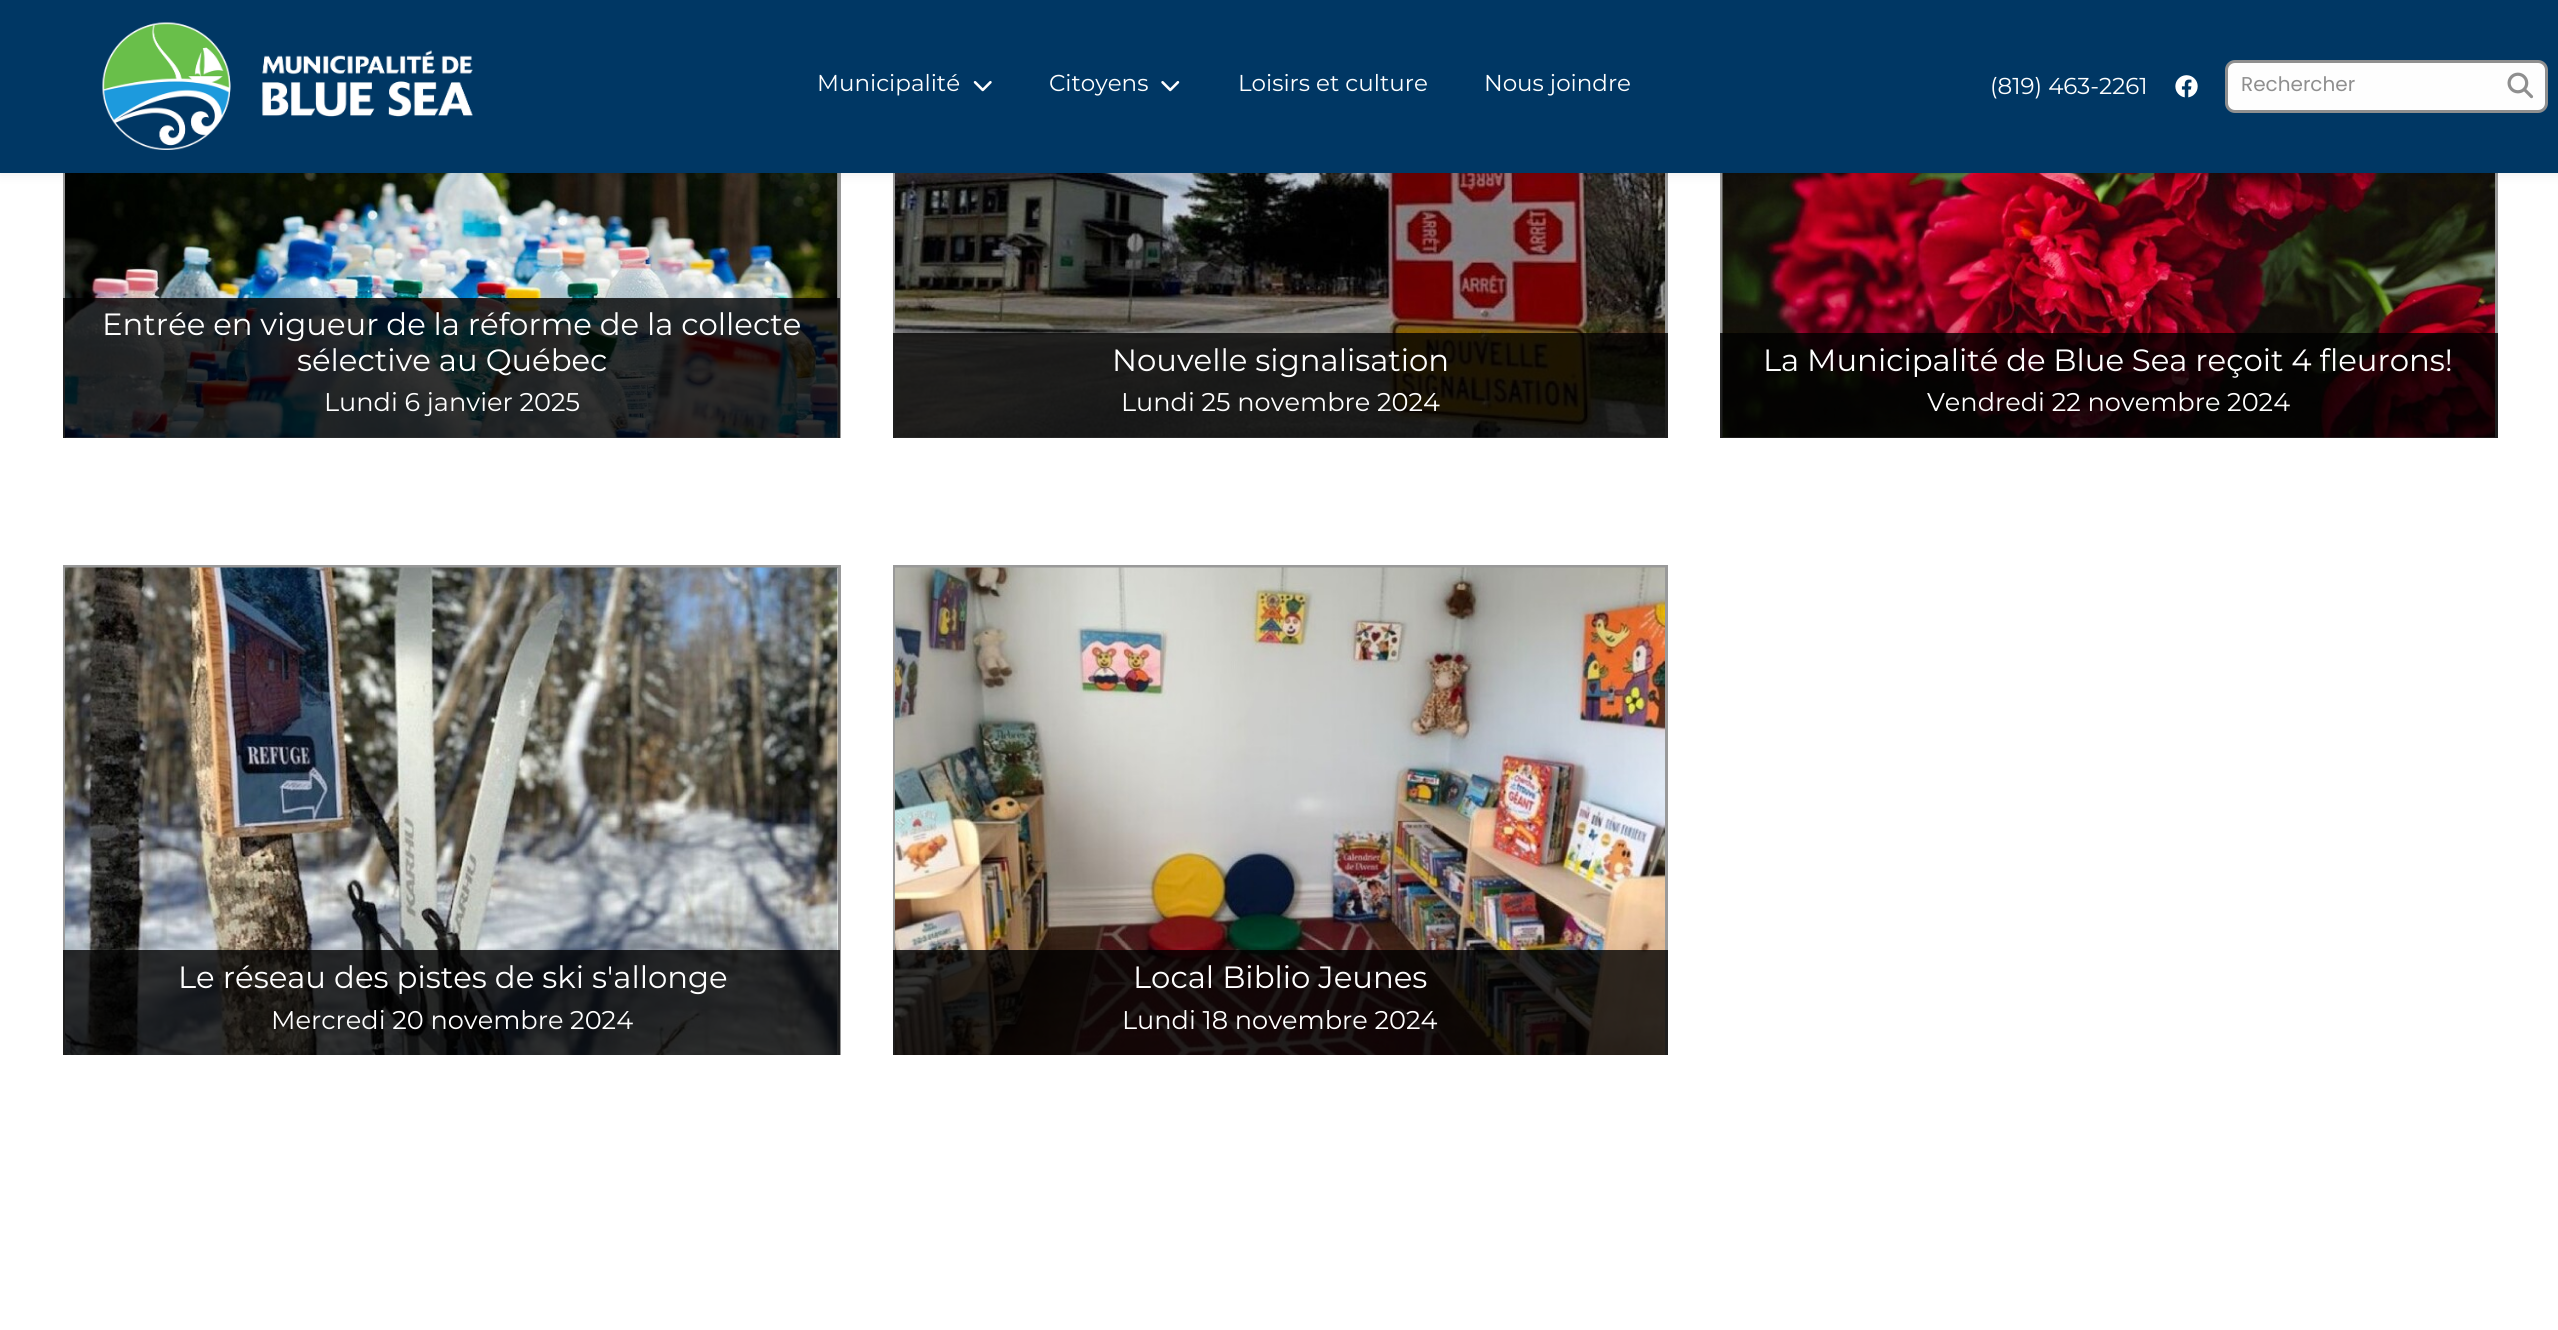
#include <cairo.h>
#include <math.h>
#include <stddef.h>


static void rgb(cairo_t *cr, int r, int g, int b)
{
	cairo_set_source_rgb(cr, r / 255.0, g / 255.0, b / 255.0);
}

static void face(cairo_t *cr, const char *family, double size, int italic, int bold)
{
	cairo_select_font_face(cr, family, italic ? CAIRO_FONT_SLANT_ITALIC : CAIRO_FONT_SLANT_NORMAL,
		bold ? CAIRO_FONT_WEIGHT_BOLD : CAIRO_FONT_WEIGHT_NORMAL);
	cairo_set_font_size(cr, size);
}

static void label(cairo_t *cr, double x, double y, const char *s)
{
	cairo_move_to(cr, x, y);
	cairo_show_text(cr, s);
}

static void tracked(cairo_t *cr, double x, double y, const char *s, double letter, double word)
{
	cairo_move_to(cr, x, y);
	while (*s) {
		char ch[5] = {0};
		int n = 0;
		do ch[n++] = *s++; while ((*s & 0xC0) == 0x80);
		cairo_show_text(cr, ch);
		cairo_rel_move_to(cr, letter + word * (*ch == ' '), 0);
	}
}

static void rect(cairo_t *cr, double x, double y, double w, double h)
{
	cairo_rectangle(cr, x, y, w, h);
	cairo_fill(cr);
}

static void rrect(cairo_t *cr, double x, double y, double w, double h, double r)
{
	cairo_new_sub_path(cr);
	cairo_arc(cr, x + w - r, y + h - r, r, 0, M_PI / 2);
	cairo_arc(cr, x + r, y + h - r, r, M_PI / 2, M_PI);
	cairo_arc(cr, x + r, y + r, r, M_PI, 1.5 * M_PI);
	cairo_arc(cr, x + w - r, y + r, r, 1.5 * M_PI, 2 * M_PI);
	cairo_close_path(cr);
}

static void soft_shadow(cairo_t *cr, double x, double y, double w, double h, double r, double blur, double alpha)
{
	cairo_push_group_with_content(cr, CAIRO_CONTENT_ALPHA);
	cairo_set_operator(cr, CAIRO_OPERATOR_SOURCE);
	for (int i = 15; i >= -15 && fmin(w, h) + blur * i / 3 > 0; i -= 2) {
		double e = blur * i / 6;
		cairo_set_source_rgba(cr, 0, 0, 0, alpha * erfc((i - 1) / 8.5) / 2);
		rrect(cr, x - e, y - e, w + 2 * e, h + 2 * e, fmax(0, fmin(r + e + blur * .6, fmin(w, h) / 2 + e)));
		cairo_fill(cr);
	}
	cairo_pattern_t *soft = cairo_pop_group(cr);
	cairo_mask(cr, soft);
	cairo_pattern_destroy(soft);
}

static void image(cairo_t *cr, const char *path, double x, double y, double w, double h)
{
	cairo_surface_t *image = cairo_image_surface_create_from_png(path);
	cairo_save(cr);
	cairo_set_source_surface(cr, image, x, y);
	cairo_rectangle(cr, x, y, w, h);
	cairo_fill(cr);
	cairo_restore(cr);
	cairo_surface_destroy(image);
}

static void draw(cairo_t *cr) {
	rgb(cr, 255, 255, 255);
	cairo_paint(cr);
	rgb(cr, 153, 153, 153);
	rect(cr, 838, 173, 3, 265);
	rect(cr, 63, 173, 3, 265);
	image(cr, "image5.png", 65, 173, 773, 265);
	rect(cr, 1665, 173, 3, 265);
	rect(cr, 893, 173, 3, 265);
	image(cr, "image6.png", 895, 173, 770, 265);
	rect(cr, 2495, 173, 3, 265);
	rect(cr, 1720, 173, 3, 265);
	image(cr, "image7.png", 1722, 173, 773, 265);
	rgb(cr, 0, 0, 0);
	soft_shadow(cr, 0, 0, 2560, 173, 0, 6, 0.1);
	rgb(cr, 0, 55, 100);
	rect(cr, 0, 0, 2558, 173);
	image(cr, "image0.png", 102, 22, 371, 128);
	face(cr, "Montserrat", 23, 0, 0);
	rgb(cr, 255, 255, 255);
	label(cr, 817, 91, "Municipalité");
	image(cr, "image1.png", 973, 81, 19, 11);
	label(cr, 1049, 91, "Citoyens");
	image(cr, "image2.png", 1161, 81, 19, 11);
	label(cr, 1238, 91, "Loisirs et culture");
	label(cr, 1484, 91, "Nous joindre");
	label(cr, 1990, 94, "(819) 463-2261");
	image(cr, "image3.png", 2175, 75, 23, 23);
	rgb(cr, 254, 254, 254);
	rrect(cr, 2226.5, 61.5, 320, 50, 8.5);
	cairo_fill_preserve(cr);
	rgb(cr, 143, 143, 143);
	cairo_set_line_width(cr, 3);
	cairo_stroke(cr);
	face(cr, "Poppins", 20, 0, 0);
	label(cr, 2241, 91, "Rechercher");
	image(cr, "image4.png", 2507, 72, 27, 27);
	cairo_set_source_rgba(cr, 0, 0, 0, 0.8);
	rect(cr, 63, 298, 777, 140);
	face(cr, "Montserrat", 30.75, 0, 0);
	rgb(cr, 255, 255, 255);
	tracked(cr, 102, 335, "Entrée en vigueur de la réforme de la collecte", 0, -0.25);
	label(cr, 297, 371, "sélective au Québec");
	face(cr, "Montserrat", 25.6, 0, 0);
	label(cr, 324, 411, "Lundi 6 janvier 2025");
	cairo_set_source_rgba(cr, 0, 0, 0, 0.8);
	rect(cr, 893, 333, 775, 105);
	face(cr, "Montserrat", 30.75, 0, 0);
	rgb(cr, 255, 255, 255);
	label(cr, 1112, 371, "Nouvelle signalisation");
	face(cr, "Montserrat", 25.6, 0, 0);
	label(cr, 1121, 411, "Lundi 25 novembre 2024");
	cairo_set_source_rgba(cr, 0, 0, 0, 0.8);
	rect(cr, 1720, 333, 778, 105);
	face(cr, "Montserrat", 30.75, 0, 0);
	rgb(cr, 255, 255, 255);
	tracked(cr, 1763, 371, "La Municipalité de Blue Sea reçoit 4 fleurons!", 0, -0.25);
	face(cr, "Montserrat", 25.6, 0, 0);
	label(cr, 1927, 411, "Vendredi 22 novembre 2024");
	rgb(cr, 153, 153, 153);
	rect(cr, 63, 565, 777, 3);
	rect(cr, 838, 565, 3, 490);
	rect(cr, 63, 565, 3, 490);
	image(cr, "image8.png", 65, 567, 773, 488);
	cairo_set_source_rgba(cr, 0, 0, 0, 0.8);
	rect(cr, 63, 950, 777, 105);
	face(cr, "Montserrat", 30.75, 0, 0);
	rgb(cr, 255, 255, 255);
	label(cr, 178, 988, "Le réseau des pistes de ski s'allonge");
	face(cr, "Montserrat", 25.6, 0, 0);
	label(cr, 271, 1029, "Mercredi 20 novembre 2024");
	rgb(cr, 153, 153, 153);
	rect(cr, 893, 565, 775, 3);
	rect(cr, 1665, 565, 3, 490);
	rect(cr, 893, 565, 3, 490);
	image(cr, "image9.png", 895, 567, 770, 488);
	cairo_set_source_rgba(cr, 0, 0, 0, 0.8);
	rect(cr, 893, 950, 775, 105);
	face(cr, "Montserrat", 30.75, 0, 0);
	rgb(cr, 255, 255, 255);
	label(cr, 1133, 988, "Local Biblio Jeunes");
	face(cr, "Montserrat", 25.6, 0, 0);
	label(cr, 1122, 1029, "Lundi 18 novembre 2024");
}

int main(void) {
	cairo_surface_t *surface = cairo_image_surface_create(CAIRO_FORMAT_RGB24, 2558, 1330);
	cairo_t *cr = cairo_create(surface);
	cairo_font_options_t *options = cairo_font_options_create();
	cairo_font_options_set_hint_metrics(options, CAIRO_HINT_METRICS_OFF);
	cairo_font_options_set_hint_style(options, CAIRO_HINT_STYLE_NONE);
	cairo_set_font_options(cr, options);
	cairo_set_miter_limit(cr, 4);
	draw(cr);
	cairo_surface_write_to_png(surface, "render.png");
	cairo_font_options_destroy(options);
	cairo_destroy(cr);
	cairo_surface_destroy(surface);
	return 0;
}
